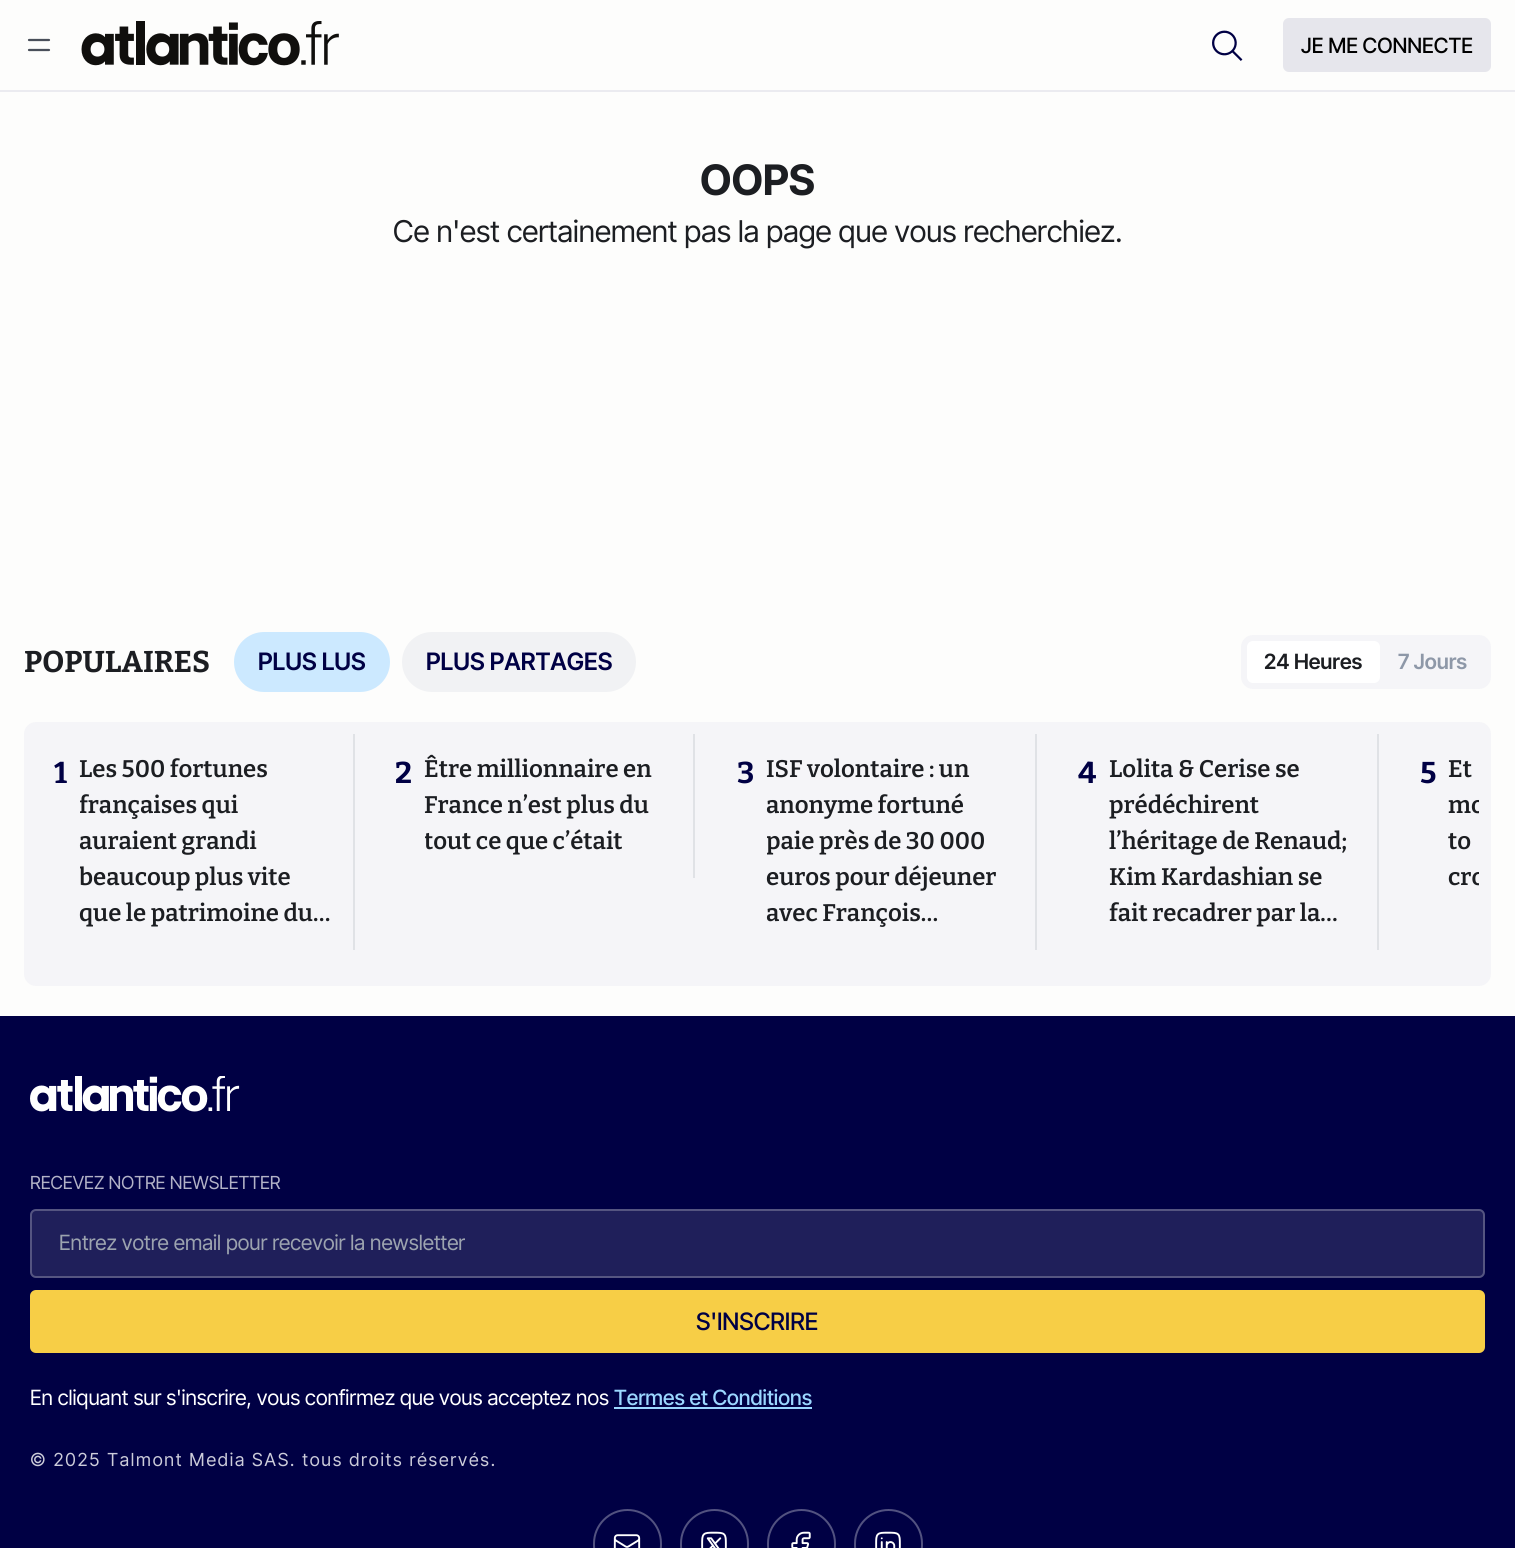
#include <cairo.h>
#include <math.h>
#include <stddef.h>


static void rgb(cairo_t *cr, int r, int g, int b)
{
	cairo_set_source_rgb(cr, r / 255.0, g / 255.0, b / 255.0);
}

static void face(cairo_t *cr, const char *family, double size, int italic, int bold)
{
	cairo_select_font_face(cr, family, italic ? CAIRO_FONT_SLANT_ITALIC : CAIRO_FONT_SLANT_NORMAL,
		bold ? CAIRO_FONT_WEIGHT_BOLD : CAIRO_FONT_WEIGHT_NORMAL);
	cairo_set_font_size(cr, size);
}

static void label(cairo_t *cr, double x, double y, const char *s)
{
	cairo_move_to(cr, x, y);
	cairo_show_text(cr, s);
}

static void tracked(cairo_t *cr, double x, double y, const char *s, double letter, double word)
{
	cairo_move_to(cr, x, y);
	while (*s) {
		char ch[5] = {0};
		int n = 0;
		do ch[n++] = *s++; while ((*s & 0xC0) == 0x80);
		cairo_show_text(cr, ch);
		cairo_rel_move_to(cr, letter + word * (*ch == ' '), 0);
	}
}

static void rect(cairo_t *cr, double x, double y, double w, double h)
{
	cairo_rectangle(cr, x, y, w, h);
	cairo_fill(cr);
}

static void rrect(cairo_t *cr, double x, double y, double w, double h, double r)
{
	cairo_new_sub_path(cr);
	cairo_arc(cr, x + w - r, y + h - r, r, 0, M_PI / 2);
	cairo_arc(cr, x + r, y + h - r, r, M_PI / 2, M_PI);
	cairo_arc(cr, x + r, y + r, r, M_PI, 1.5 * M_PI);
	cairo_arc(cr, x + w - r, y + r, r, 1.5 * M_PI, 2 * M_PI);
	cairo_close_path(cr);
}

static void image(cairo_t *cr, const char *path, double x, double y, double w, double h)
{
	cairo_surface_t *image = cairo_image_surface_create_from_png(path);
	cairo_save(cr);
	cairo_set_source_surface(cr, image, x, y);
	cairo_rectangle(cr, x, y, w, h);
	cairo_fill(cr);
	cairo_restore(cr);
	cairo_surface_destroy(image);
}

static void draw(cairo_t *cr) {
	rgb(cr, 253, 253, 252);
	cairo_paint(cr);
	rgb(cr, 235, 235, 240);
	rect(cr, 0, 90, 1515, 2);
	cairo_new_path(cr);
	cairo_move_to(cr, 29, 40);
	cairo_line_to(cr, 49, 40);
	cairo_move_to(cr, 29, 50);
	cairo_line_to(cr, 49, 50);
	rgb(cr, 73, 79, 90);
	cairo_set_line_width(cr, 2.2);
	cairo_set_line_cap(cr, CAIRO_LINE_CAP_ROUND);
	cairo_set_line_join(cr, CAIRO_LINE_JOIN_ROUND);
	cairo_stroke(cr);
	image(cr, "image0.png", 81, 21, 258, 45);
	image(cr, "image1.png", 1212, 30, 31, 31);
	rgb(cr, 230, 230, 236);
	rrect(cr, 1283, 18, 208, 54, 6);
	cairo_fill(cr);
	face(cr, "Inter Tight Medium", 21, 0, 0);
	rgb(cr, 0, 0, 0);
	label(cr, 1301, 53, "JE ME CONNECTE");
	face(cr, "Inter Tight", 42, 0, 1);
	rgb(cr, 28, 30, 34);
	label(cr, 700, 195, "OOPS");
	face(cr, "Inter Tight", 30, 0, 0);
	label(cr, 393, 242, "Ce n'est certainement pas la page que vous recherchiez.");
	face(cr, "Bitter", 30, 0, 1);
	label(cr, 24, 672, "POPULAIRES");
	rgb(cr, 204, 233, 255);
	rrect(cr, 234, 632, 156, 60, 30);
	cairo_fill(cr);
	face(cr, "Inter Tight SemiBold", 24, 0, 0);
	rgb(cr, 0, 0, 68);
	label(cr, 258, 670, "PLUS LUS");
	rgb(cr, 241, 242, 244);
	rrect(cr, 402, 632, 234, 60, 30);
	cairo_fill(cr);
	rgb(cr, 0, 0, 68);
	label(cr, 426, 670, "PLUS PARTAGES");
	rgb(cr, 245, 245, 248);
	rrect(cr, 1241, 635, 250, 54, 12);
	cairo_fill(cr);
	rgb(cr, 255, 255, 255);
	rrect(cr, 1247, 641, 133, 42, 6);
	cairo_fill(cr);
	face(cr, "Inter Tight SemiBold", 21, 0, 0);
	rgb(cr, 28, 30, 34);
	label(cr, 1264, 669, "24 Heures");
	rgb(cr, 142, 152, 168);
	label(cr, 1398, 669, "7 Jours");
	rgb(cr, 245, 245, 248);
	rrect(cr, 24, 722, 1467, 264, 12);
	cairo_fill(cr);
	rgb(cr, 224, 226, 230);
	rect(cr, 353, 734, 2, 216);
	face(cr, "Bitter", 30, 0, 1);
	rgb(cr, 0, 0, 68);
	label(cr, 54, 783, "1");
	face(cr, "Bitter SemiBold", 24, 0, 0);
	rgb(cr, 28, 30, 34);
	label(cr, 79, 777, "Les 500 fortunes");
	cairo_save(cr);
	cairo_rectangle(cr, 80, 752, 255, 180);
	cairo_clip(cr);
	label(cr, 79, 813, "françaises qui");
	cairo_restore(cr);
	label(cr, 79, 849, "auraient grandi");
	cairo_save(cr);
	cairo_rectangle(cr, 80, 752, 255, 180);
	cairo_clip(cr);
	label(cr, 79, 885, "beaucoup plus vite");
	cairo_restore(cr);
	label(cr, 79, 921, "que le patrimoine du…");
	rgb(cr, 224, 226, 230);
	rect(cr, 693, 734, 2, 144);
	face(cr, "Bitter", 30, 0, 1);
	rgb(cr, 0, 0, 68);
	label(cr, 395, 783, "2");
	face(cr, "Bitter SemiBold", 24, 0, 0);
	rgb(cr, 28, 30, 34);
	label(cr, 424, 777, "Être millionnaire en");
	label(cr, 424, 813, "France n’est plus du");
	cairo_save(cr);
	cairo_rectangle(cr, 425, 752, 250, 108);
	cairo_clip(cr);
	label(cr, 424, 849, "tout ce que c’était");
	cairo_restore(cr);
	rgb(cr, 224, 226, 230);
	rect(cr, 1035, 734, 2, 216);
	face(cr, "Bitter", 30, 0, 1);
	rgb(cr, 0, 0, 68);
	label(cr, 737, 783, "3");
	face(cr, "Bitter SemiBold", 24, 0, 0);
	rgb(cr, 28, 30, 34);
	label(cr, 766, 777, "ISF volontaire : un");
	label(cr, 766, 813, "anonyme fortuné");
	cairo_save(cr);
	cairo_rectangle(cr, 767, 752, 250, 180);
	cairo_clip(cr);
	label(cr, 766, 849, "paie près de 30 000");
	cairo_restore(cr);
	label(cr, 766, 885, "euros pour déjeuner");
	label(cr, 766, 921, "avec François…");
	rgb(cr, 224, 226, 230);
	rect(cr, 1377, 734, 2, 216);
	face(cr, "Bitter", 30, 0, 1);
	rgb(cr, 0, 0, 68);
	label(cr, 1078, 783, "4");
	face(cr, "Bitter SemiBold", 24, 0, 0);
	rgb(cr, 28, 30, 34);
	label(cr, 1109, 777, "Lolita & Cerise se");
	label(cr, 1109, 813, "prédéchirent");
	label(cr, 1109, 849, "l’héritage de Renaud;");
	label(cr, 1109, 885, "Kim Kardashian se");
	label(cr, 1109, 921, "fait recadrer par la…");
	face(cr, "Bitter", 30, 0, 1);
	rgb(cr, 0, 0, 68);
	label(cr, 1420, 783, "5");
	face(cr, "Bitter SemiBold", 24, 0, 0);
	rgb(cr, 28, 30, 34);
	label(cr, 1448, 777, "Et");
	cairo_save(cr);
	cairo_rectangle(cr, 1448, 752, 31, 144);
	cairo_clip(cr);
	label(cr, 1448, 813, "mo");
	cairo_restore(cr);
	label(cr, 1448, 849, "to");
	cairo_save(cr);
	cairo_rectangle(cr, 1448, 752, 31, 144);
	cairo_clip(cr);
	label(cr, 1448, 885, "cro");
	cairo_restore(cr);
	rgb(cr, 0, 0, 68);
	rect(cr, 0, 1016, 1515, 532);
	image(cr, "image2.png", 30, 1076, 210, 36);
	face(cr, "Inter Tight", 18, 0, 0);
	rgb(cr, 178, 178, 199);
	label(cr, 30, 1189, "RECEVEZ NOTRE NEWSLETTER");
	rgb(cr, 31, 31, 90);
	rrect(cr, 30, 1209, 1455, 69, 6);
	cairo_fill(cr);
	rrect(cr, 31, 1210, 1453, 67, 5);
	cairo_set_source_rgba(cr, 1, 1, 1, 0.24);
	cairo_set_line_width(cr, 2);
	cairo_set_line_cap(cr, CAIRO_LINE_CAP_BUTT);
	cairo_set_line_join(cr, CAIRO_LINE_JOIN_MITER);
	cairo_stroke(cr);
	face(cr, "Inter Tight", 21, 0, 0);
	rgb(cr, 156, 163, 175);
	label(cr, 59, 1250, "Entrez votre email pour recevoir la newsletter");
	rgb(cr, 247, 206, 70);
	rrect(cr, 30, 1290, 1455, 63, 6);
	cairo_fill(cr);
	face(cr, "Inter Tight Medium", 24, 0, 0);
	rgb(cr, 0, 0, 68);
	label(cr, 696, 1330, "S'INSCRIRE");
	face(cr, "Inter Tight", 21, 0, 0);
	rgb(cr, 255, 255, 255);
	label(cr, 30, 1405, "En cliquant sur s'inscrire, vous confirmez que vous acceptez nos");
	face(cr, "Inter Tight Medium", 21, 0, 0);
	rgb(cr, 155, 215, 255);
	label(cr, 614, 1405, "Termes et Conditions");
	rect(cr, 614, 1407, 198, 2);
	face(cr, "Inter Tight", 18, 0, 0);
	rgb(cr, 204, 204, 218);
	tracked(cr, 30, 1466, "© 2025 Talmont Media SAS. tous droits réservés.", 1.8, 0);
	rrect(cr, 594, 1510, 67, 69, 33.5);
	rgb(cr, 82, 82, 128);
	cairo_stroke(cr);
	image(cr, "image3.png", 613, 1534, 28, 14);
	rrect(cr, 681, 1510, 67, 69, 33.5);
	cairo_stroke(cr);
	image(cr, "image4.png", 701, 1531, 26, 17);
	rrect(cr, 768, 1510, 67, 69, 33.5);
	cairo_stroke(cr);
	image(cr, "image5.png", 791, 1531, 20, 17);
	rrect(cr, 855, 1510, 67, 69, 33.5);
	cairo_stroke(cr);
	image(cr, "image6.png", 875, 1531, 26, 17);
}

int main(void) {
	cairo_surface_t *surface = cairo_image_surface_create(CAIRO_FORMAT_RGB24, 1515, 1548);
	cairo_t *cr = cairo_create(surface);
	cairo_font_options_t *options = cairo_font_options_create();
	cairo_font_options_set_hint_metrics(options, CAIRO_HINT_METRICS_OFF);
	cairo_font_options_set_hint_style(options, CAIRO_HINT_STYLE_NONE);
	cairo_set_font_options(cr, options);
	cairo_set_miter_limit(cr, 4);
	draw(cr);
	cairo_surface_write_to_png(surface, "render.png");
	cairo_font_options_destroy(options);
	cairo_destroy(cr);
	cairo_surface_destroy(surface);
	return 0;
}
